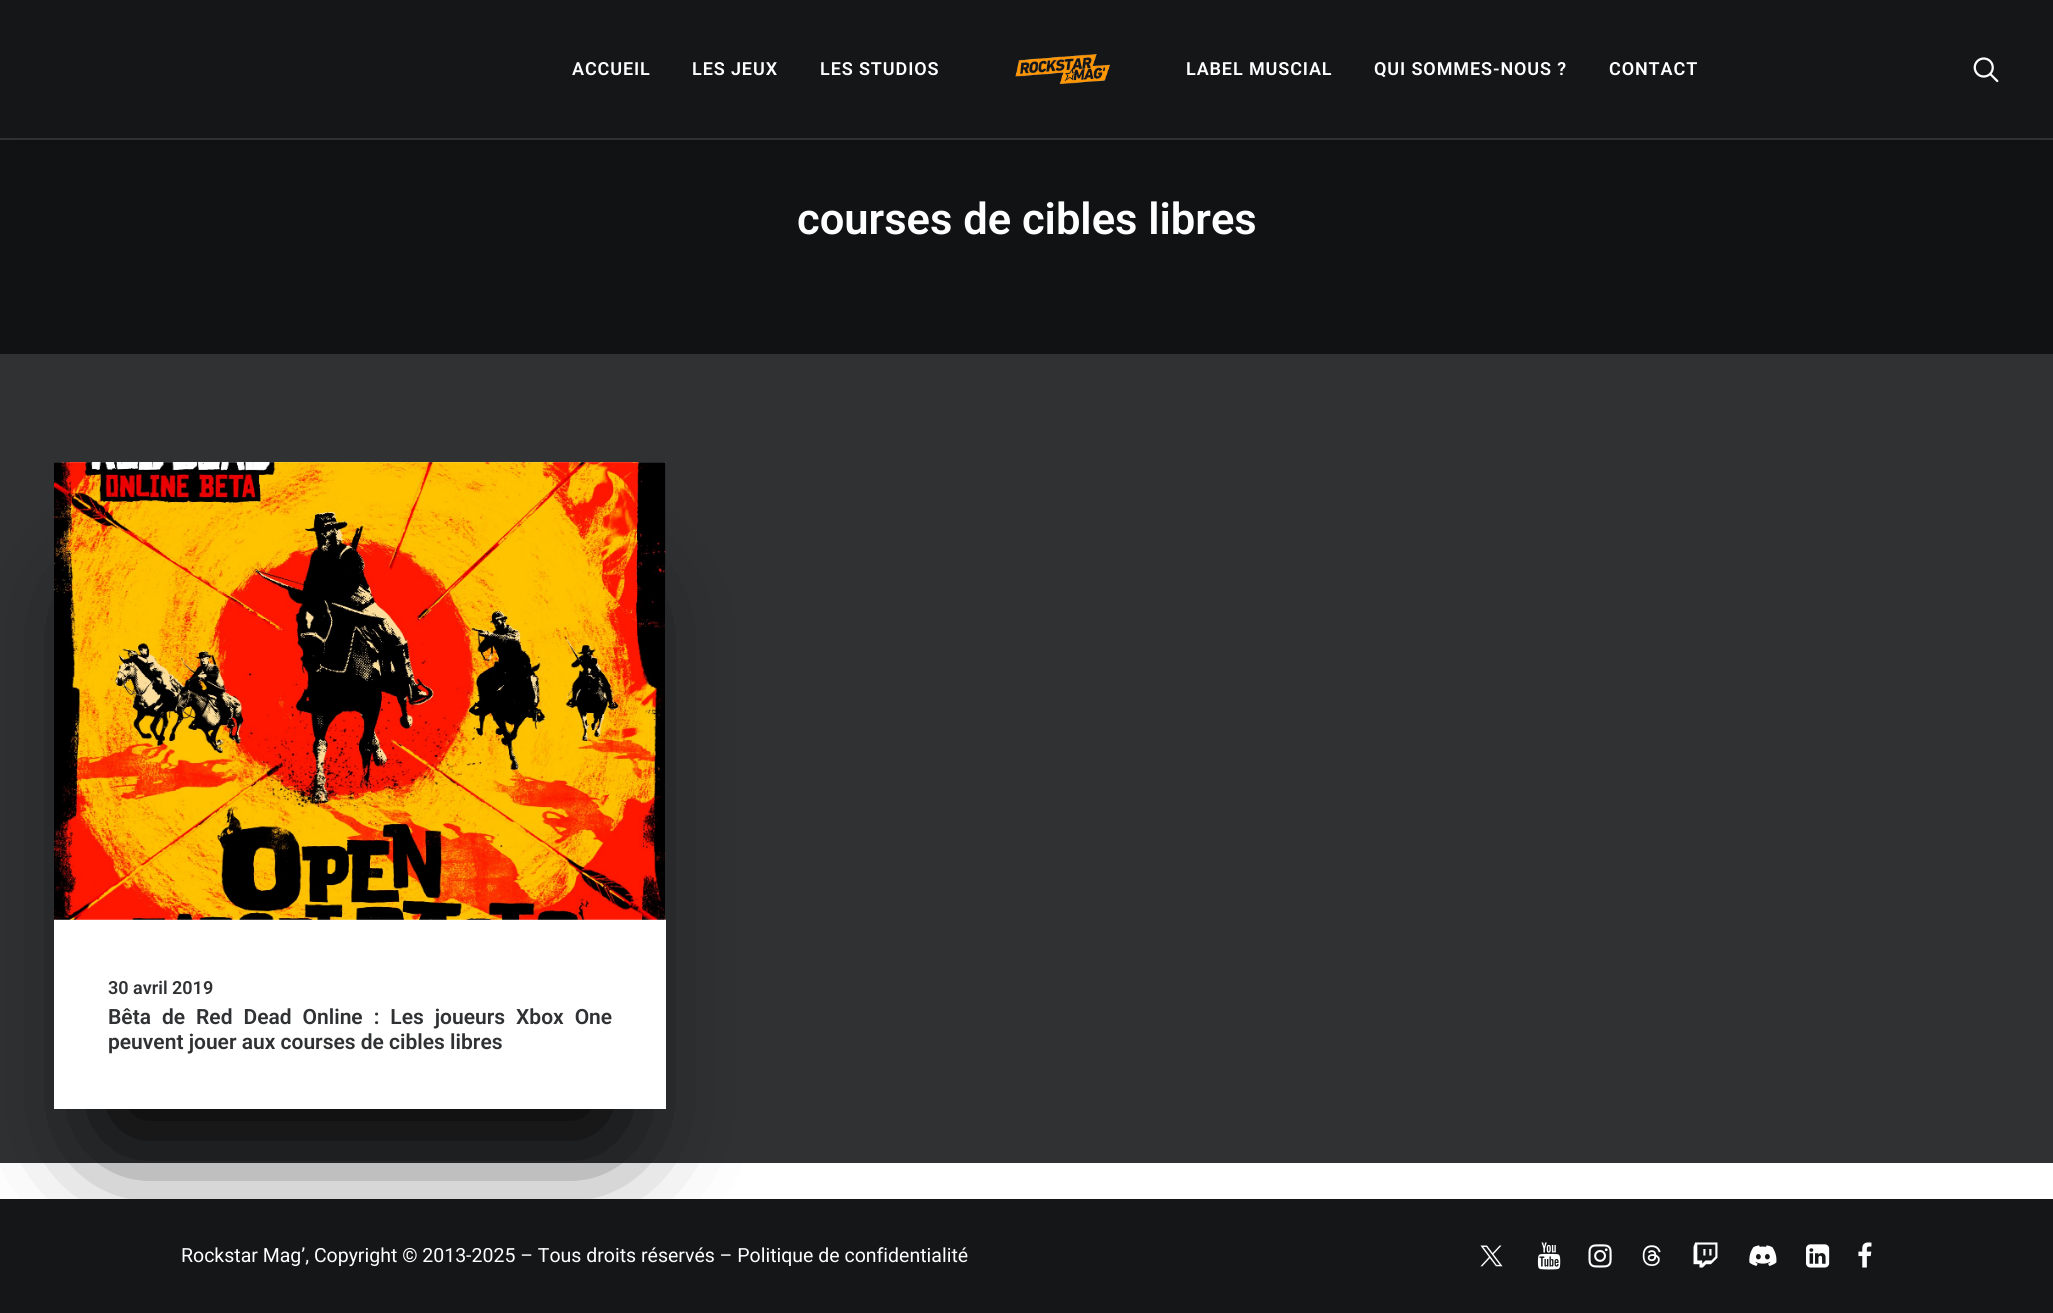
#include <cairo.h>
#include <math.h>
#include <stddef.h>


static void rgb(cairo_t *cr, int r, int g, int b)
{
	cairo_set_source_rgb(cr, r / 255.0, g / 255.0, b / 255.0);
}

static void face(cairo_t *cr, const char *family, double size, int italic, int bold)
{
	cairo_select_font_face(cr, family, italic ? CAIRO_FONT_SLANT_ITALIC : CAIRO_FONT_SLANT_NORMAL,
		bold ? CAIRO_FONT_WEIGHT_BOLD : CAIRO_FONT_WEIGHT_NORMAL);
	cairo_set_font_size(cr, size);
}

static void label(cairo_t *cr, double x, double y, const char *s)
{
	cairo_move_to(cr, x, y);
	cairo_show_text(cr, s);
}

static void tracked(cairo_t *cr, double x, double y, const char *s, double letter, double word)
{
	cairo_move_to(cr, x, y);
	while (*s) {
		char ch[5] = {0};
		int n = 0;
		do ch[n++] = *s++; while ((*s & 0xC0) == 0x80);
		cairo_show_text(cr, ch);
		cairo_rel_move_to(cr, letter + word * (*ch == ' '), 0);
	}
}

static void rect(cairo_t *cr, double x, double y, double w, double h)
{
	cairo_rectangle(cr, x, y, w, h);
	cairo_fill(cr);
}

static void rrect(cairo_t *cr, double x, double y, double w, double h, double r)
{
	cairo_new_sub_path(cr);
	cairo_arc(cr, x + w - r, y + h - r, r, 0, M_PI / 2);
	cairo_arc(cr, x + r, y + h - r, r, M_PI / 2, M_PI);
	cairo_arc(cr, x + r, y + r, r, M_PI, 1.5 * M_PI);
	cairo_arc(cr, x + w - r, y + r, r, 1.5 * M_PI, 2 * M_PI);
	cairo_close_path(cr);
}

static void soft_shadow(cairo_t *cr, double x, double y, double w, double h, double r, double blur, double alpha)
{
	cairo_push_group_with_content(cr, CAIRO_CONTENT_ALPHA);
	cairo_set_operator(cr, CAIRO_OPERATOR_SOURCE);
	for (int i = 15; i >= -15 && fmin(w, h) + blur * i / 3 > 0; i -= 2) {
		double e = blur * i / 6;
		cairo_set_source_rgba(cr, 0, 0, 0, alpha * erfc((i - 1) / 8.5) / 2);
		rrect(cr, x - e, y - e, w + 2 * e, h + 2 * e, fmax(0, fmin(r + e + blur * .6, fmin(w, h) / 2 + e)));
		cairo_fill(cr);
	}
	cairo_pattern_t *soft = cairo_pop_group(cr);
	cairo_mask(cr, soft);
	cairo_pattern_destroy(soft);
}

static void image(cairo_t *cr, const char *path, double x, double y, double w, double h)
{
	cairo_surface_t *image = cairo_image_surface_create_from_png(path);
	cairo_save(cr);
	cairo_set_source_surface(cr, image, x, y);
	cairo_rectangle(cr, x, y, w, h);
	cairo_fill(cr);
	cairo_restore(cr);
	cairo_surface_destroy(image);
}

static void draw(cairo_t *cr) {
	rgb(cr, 16, 18, 19);
	cairo_paint(cr);
	rgb(cr, 0, 0, 0);
	soft_shadow(cr, 15, 21, 2024, 110, 0, 7.5, 0.6);
	rgb(cr, 20, 22, 24);
	rect(cr, 0, 0, 2053, 138);
	rgb(cr, 48, 49, 51);
	rect(cr, 0, 138, 2053, 2);
	face(cr, "Roboto SemiBold", 18, 0, 0);
	rgb(cr, 255, 255, 255);
	tracked(cr, 572, 75, "ACCUEIL", 0.9, 0);
	tracked(cr, 692, 75, "LES JEUX", 0.9, 0);
	tracked(cr, 820, 75, "LES STUDIOS", 0.9, 0);
	image(cr, "image0.png", 1015, 54, 95, 30);
	tracked(cr, 1186, 75, "LABEL MUSCIAL", 0.9, 0);
	tracked(cr, 1374, 75, "QUI SOMMES-NOUS ?", 0.9, 0);
	tracked(cr, 1609, 75, "CONTACT", 0.9, 0);
	image(cr, "image1.png", 1973, 57, 26, 26);
	face(cr, "Roboto SemiBold", 43.5, 0, 0);
	label(cr, 797, 234, "courses de cibles libres");
	rect(cr, 0, 1163, 2053, 36);
	rgb(cr, 48, 49, 51);
	rect(cr, 0, 354, 2053, 809);
	rgb(cr, 0, 0, 0);
	soft_shadow(cr, 114, 605, 492, 526, 0, 60, 1);
	rgb(cr, 255, 255, 255);
	rect(cr, 54, 462, 612, 647);
	image(cr, "image2.png", 54, 462, 612, 458);
	face(cr, "Roboto SemiBold", 18, 0, 0);
	rgb(cr, 48, 49, 51);
	label(cr, 108, 994, "30 avril 2019");
	face(cr, "Roboto SemiBold", 21, 0, 0);
	tracked(cr, 108, 1024, "Bêta de Red Dead Online : Les joueurs Xbox One", 0, 5.75);
	label(cr, 108, 1049, "peuvent jouer aux courses de cibles libres");
	rgb(cr, 20, 22, 24);
	rect(cr, 0, 1199, 2053, 114);
	face(cr, "Roboto", 19.5, 0, 0);
	rgb(cr, 255, 255, 255);
	label(cr, 181, 1262, "Rockstar Mag’, Copyright © 2013-2025 – Tous droits réservés – Politique de confidentialité");
	image(cr, "image3.png", 1480, 1245, 23, 22);
	image(cr, "image4.png", 1537, 1242, 24, 28);
	image(cr, "image5.png", 1588, 1244, 24, 24);
	image(cr, "image6.png", 1642, 1245, 19, 21);
	image(cr, "image7.png", 1693, 1242, 25, 26);
	image(cr, "image8.png", 1749, 1245, 28, 21);
	image(cr, "image9.png", 1806, 1244, 24, 24);
	image(cr, "image10.png", 1858, 1242, 14, 26);
}

int main(void) {
	cairo_surface_t *surface = cairo_image_surface_create(CAIRO_FORMAT_RGB24, 2053, 1313);
	cairo_t *cr = cairo_create(surface);
	cairo_font_options_t *options = cairo_font_options_create();
	cairo_font_options_set_hint_metrics(options, CAIRO_HINT_METRICS_OFF);
	cairo_font_options_set_hint_style(options, CAIRO_HINT_STYLE_NONE);
	cairo_set_font_options(cr, options);
	cairo_set_miter_limit(cr, 4);
	draw(cr);
	cairo_surface_write_to_png(surface, "render.png");
	cairo_font_options_destroy(options);
	cairo_destroy(cr);
	cairo_surface_destroy(surface);
	return 0;
}
